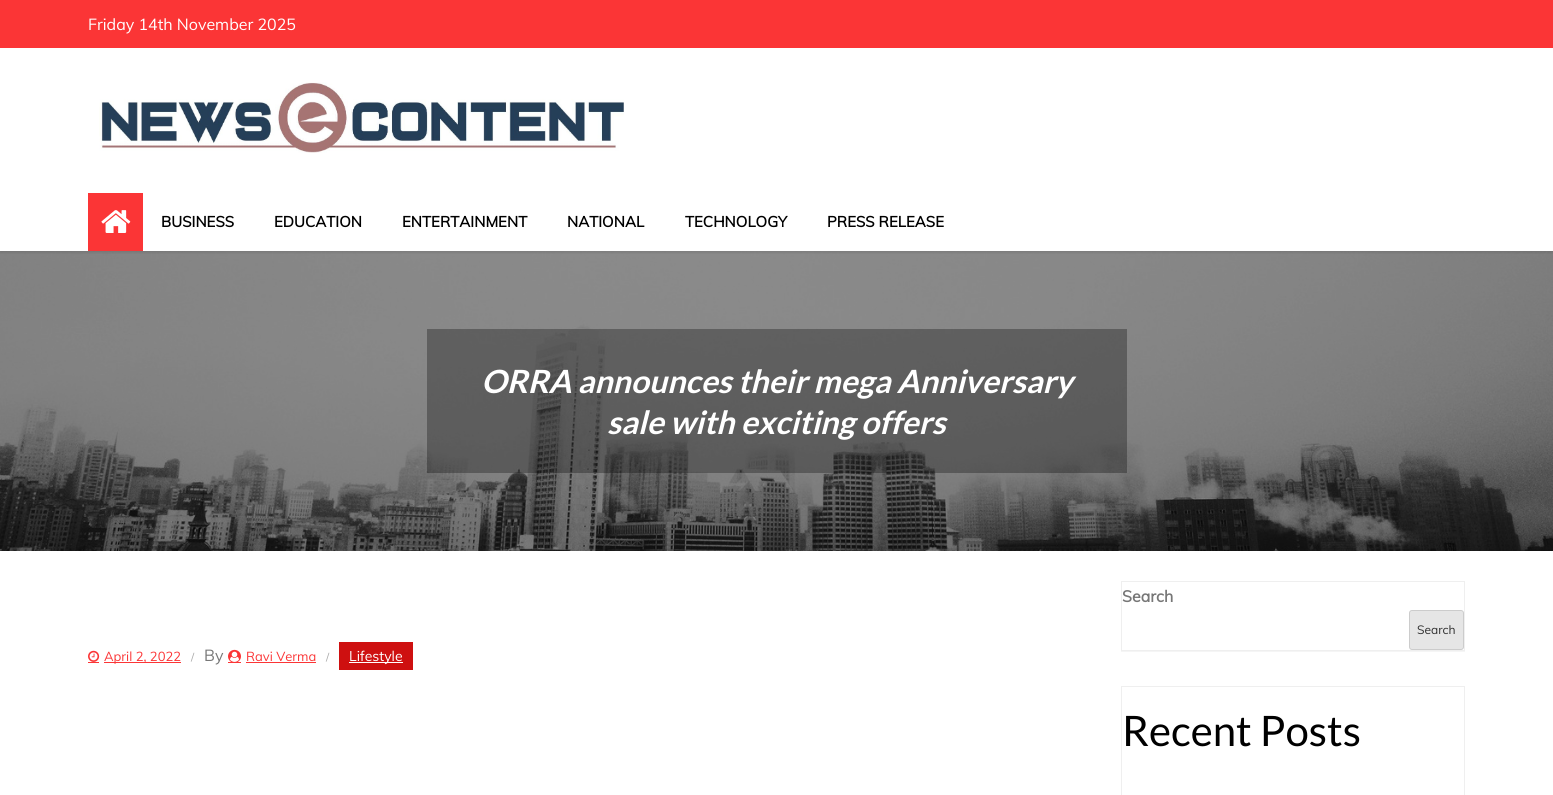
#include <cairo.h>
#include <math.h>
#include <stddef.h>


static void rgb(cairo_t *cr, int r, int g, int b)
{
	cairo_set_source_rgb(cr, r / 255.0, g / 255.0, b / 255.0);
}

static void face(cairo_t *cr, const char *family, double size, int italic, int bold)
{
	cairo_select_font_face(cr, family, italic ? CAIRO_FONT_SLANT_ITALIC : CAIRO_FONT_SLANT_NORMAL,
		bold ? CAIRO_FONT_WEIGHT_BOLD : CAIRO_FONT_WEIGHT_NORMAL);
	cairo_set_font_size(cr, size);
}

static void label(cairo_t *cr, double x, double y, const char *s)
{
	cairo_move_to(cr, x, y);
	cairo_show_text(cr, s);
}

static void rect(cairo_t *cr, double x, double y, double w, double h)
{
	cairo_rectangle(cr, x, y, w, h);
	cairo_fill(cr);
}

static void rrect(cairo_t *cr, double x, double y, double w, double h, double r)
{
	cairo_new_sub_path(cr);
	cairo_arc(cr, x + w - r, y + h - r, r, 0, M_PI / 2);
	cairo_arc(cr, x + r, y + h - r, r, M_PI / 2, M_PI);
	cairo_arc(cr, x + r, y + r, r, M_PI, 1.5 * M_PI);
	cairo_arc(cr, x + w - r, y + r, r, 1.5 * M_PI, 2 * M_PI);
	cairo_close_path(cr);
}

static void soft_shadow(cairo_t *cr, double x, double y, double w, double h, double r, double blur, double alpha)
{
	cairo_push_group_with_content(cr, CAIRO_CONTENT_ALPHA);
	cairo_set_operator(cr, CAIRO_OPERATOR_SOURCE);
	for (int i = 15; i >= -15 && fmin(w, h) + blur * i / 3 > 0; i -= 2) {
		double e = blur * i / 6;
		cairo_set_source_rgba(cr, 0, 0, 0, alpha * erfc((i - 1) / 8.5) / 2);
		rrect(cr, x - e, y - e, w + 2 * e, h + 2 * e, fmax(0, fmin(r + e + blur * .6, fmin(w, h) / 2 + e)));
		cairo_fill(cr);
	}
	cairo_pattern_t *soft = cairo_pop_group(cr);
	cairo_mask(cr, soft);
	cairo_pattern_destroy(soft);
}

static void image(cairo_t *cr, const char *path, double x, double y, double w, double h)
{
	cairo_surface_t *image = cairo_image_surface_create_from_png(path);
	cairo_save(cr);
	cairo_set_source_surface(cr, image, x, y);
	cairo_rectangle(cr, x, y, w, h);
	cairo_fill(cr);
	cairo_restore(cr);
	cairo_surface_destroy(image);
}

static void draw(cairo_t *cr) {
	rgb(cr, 255, 255, 255);
	cairo_paint(cr);
	rgb(cr, 251, 53, 54);
	rect(cr, 0, 0, 1553, 48);
	face(cr, "Muli", 16, 0, 0);
	rgb(cr, 255, 255, 255);
	label(cr, 88, 30, "Friday 14th November 2025");
	image(cr, "image2.png", 0, 251, 1553, 300);
	cairo_save(cr);
	cairo_rectangle(cr, 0, 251, 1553, 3);
	cairo_clip(cr);
	rgb(cr, 0, 0, 0);
	soft_shadow(cr, 0, 193, 1553, 58, 0, 2.5, 0.2);
	cairo_restore(cr);
	rect(cr, 0, 189, 1553, 4);
	image(cr, "image0.png", 99, 82, 525, 71);
	rgb(cr, 251, 53, 54);
	rect(cr, 88, 193, 55, 58);
	image(cr, "image1.png", 101, 210, 30, 23);
	face(cr, "Muli", 15, 0, 1);
	rgb(cr, 0, 0, 0);
	label(cr, 161, 227, "BUSINESS");
	label(cr, 274, 227, "EDUCATION");
	label(cr, 402, 227, "ENTERTAINMENT");
	label(cr, 567, 227, "NATIONAL");
	label(cr, 685, 227, "TECHNOLOGY");
	label(cr, 827, 227, "PRESS RELEASE");
	cairo_set_source_rgba(cr, 0, 0, 0, 0.3);
	rect(cr, 427, 329, 700, 144);
	face(cr, "Lato", 32, 1, 1);
	rgb(cr, 255, 255, 255);
	label(cr, 481, 393, "ORRA announces their mega Anniversary");
	label(cr, 607, 434, "sale with exciting offers");
	image(cr, "image3.png", 88, 650, 12, 12);
	rgb(cr, 251, 53, 54);
	rect(cr, 104, 662, 77, 1);
	face(cr, "Muli", 13, 0, 0);
	label(cr, 104, 661, "April 2, 2022");
	rect(cr, 88, 662, 11, 1);
	face(cr, "Muli", 11, 0, 0);
	rgb(cr, 170, 170, 170);
	label(cr, 191, 661, "/");
	face(cr, "Muli", 16, 0, 0);
	rgb(cr, 119, 119, 119);
	label(cr, 204, 661, "By");
	image(cr, "image4.png", 228, 649, 13, 13);
	face(cr, "Muli", 13, 0, 0);
	rgb(cr, 251, 53, 54);
	label(cr, 246, 661, "Ravi Verma");
	rect(cr, 228, 662, 13, 1);
	rect(cr, 246, 662, 70, 1);
	face(cr, "Muli", 11, 0, 0);
	rgb(cr, 170, 170, 170);
	label(cr, 326, 661, "/");
	rgb(cr, 206, 16, 16);
	rect(cr, 339, 642, 74, 28);
	rgb(cr, 255, 255, 255);
	rect(cr, 349, 662, 54, 1);
	face(cr, "Muli", 14, 0, 0);
	label(cr, 349, 661, "Lifestyle");
	rgb(cr, 245, 245, 245);
	rect(cr, 1121, 651, 344, 1);
	cairo_rectangle(cr, 1121.5, 581.5, 343, 69);
	rgb(cr, 239, 239, 239);
	cairo_set_line_width(cr, 1);
	cairo_stroke(cr);
	face(cr, "Muli", 16, 0, 1);
	rgb(cr, 119, 119, 119);
	label(cr, 1122, 602, "Search");
	rgb(cr, 230, 230, 230);
	rrect(cr, 1409.5, 610.5, 54, 39, 2.5);
	cairo_fill_preserve(cr);
	rgb(cr, 204, 204, 204);
	cairo_stroke(cr);
	face(cr, "Muli", 12, 0, 0);
	rgb(cr, 46, 46, 46);
	label(cr, 1417, 634, "Search");
	cairo_rectangle(cr, 1121.5, 686.5, 343, 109);
	rgb(cr, 239, 239, 239);
	cairo_stroke(cr);
	face(cr, "Lato", 42, 0, 0);
	rgb(cr, 0, 0, 0);
	label(cr, 1122, 746, "Recent Posts");
}

int main(void) {
	cairo_surface_t *surface = cairo_image_surface_create(CAIRO_FORMAT_RGB24, 1553, 795);
	cairo_t *cr = cairo_create(surface);
	cairo_font_options_t *options = cairo_font_options_create();
	cairo_font_options_set_hint_metrics(options, CAIRO_HINT_METRICS_OFF);
	cairo_font_options_set_hint_style(options, CAIRO_HINT_STYLE_NONE);
	cairo_set_font_options(cr, options);
	cairo_set_miter_limit(cr, 4);
	draw(cr);
	cairo_surface_write_to_png(surface, "render.png");
	cairo_font_options_destroy(options);
	cairo_destroy(cr);
	cairo_surface_destroy(surface);
	return 0;
}
